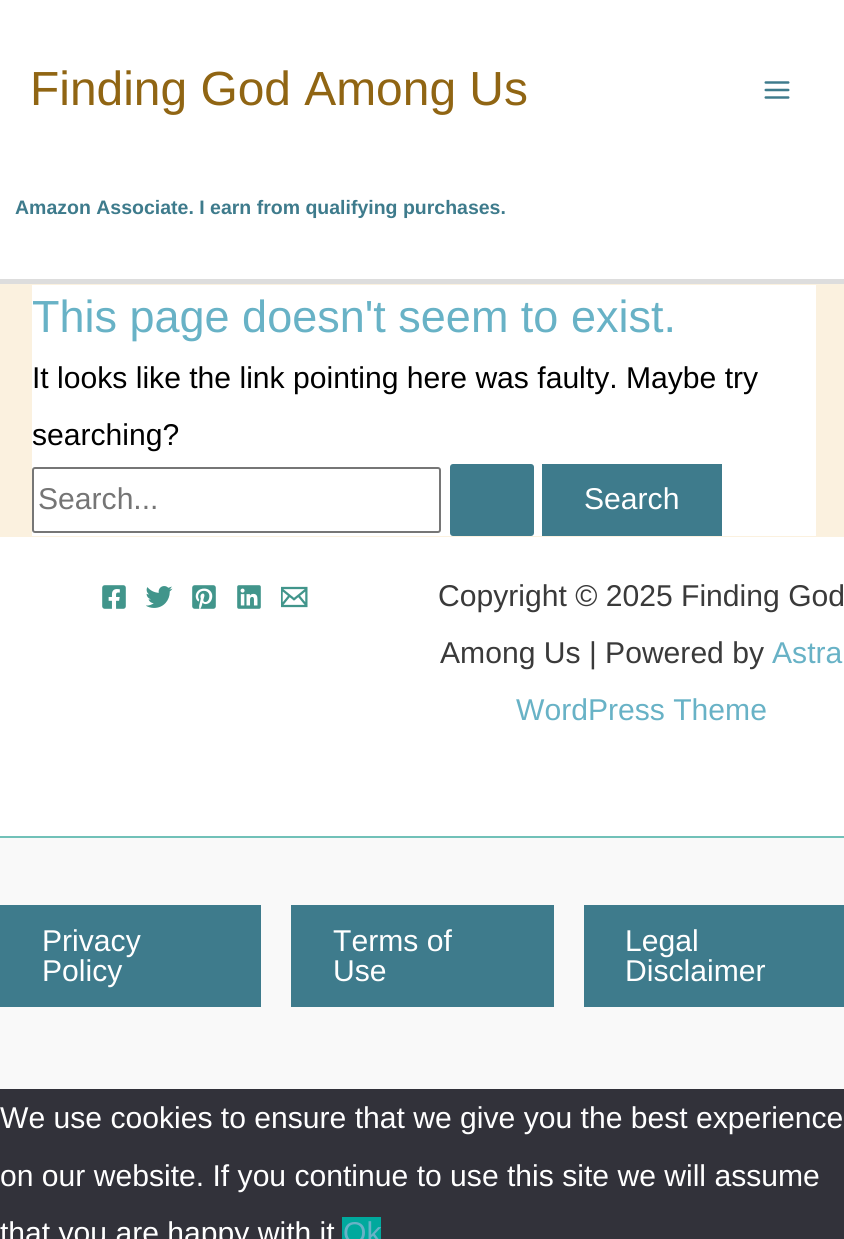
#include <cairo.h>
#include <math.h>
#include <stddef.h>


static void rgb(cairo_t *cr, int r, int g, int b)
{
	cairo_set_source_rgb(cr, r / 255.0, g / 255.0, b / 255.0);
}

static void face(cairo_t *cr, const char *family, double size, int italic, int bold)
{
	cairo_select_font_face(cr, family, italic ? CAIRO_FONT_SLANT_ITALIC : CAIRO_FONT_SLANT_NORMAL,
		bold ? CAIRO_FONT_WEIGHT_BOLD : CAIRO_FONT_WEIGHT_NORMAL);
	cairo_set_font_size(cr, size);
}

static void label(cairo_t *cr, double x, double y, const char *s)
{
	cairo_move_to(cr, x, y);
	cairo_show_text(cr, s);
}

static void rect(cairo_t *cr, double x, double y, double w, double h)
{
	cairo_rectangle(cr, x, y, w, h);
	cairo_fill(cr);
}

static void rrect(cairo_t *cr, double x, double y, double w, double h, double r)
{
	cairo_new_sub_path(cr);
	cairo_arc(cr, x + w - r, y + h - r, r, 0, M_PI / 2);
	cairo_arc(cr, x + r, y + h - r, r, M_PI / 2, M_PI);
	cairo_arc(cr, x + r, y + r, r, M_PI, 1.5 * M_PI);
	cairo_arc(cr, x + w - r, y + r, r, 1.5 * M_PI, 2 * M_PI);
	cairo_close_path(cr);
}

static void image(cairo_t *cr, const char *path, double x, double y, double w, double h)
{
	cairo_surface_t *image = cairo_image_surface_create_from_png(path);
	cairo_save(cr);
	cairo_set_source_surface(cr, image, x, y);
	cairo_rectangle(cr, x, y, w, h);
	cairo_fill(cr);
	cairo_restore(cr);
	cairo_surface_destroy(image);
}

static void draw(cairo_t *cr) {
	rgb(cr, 251, 241, 223);
	cairo_paint(cr);
	rgb(cr, 255, 255, 255);
	rect(cr, 0, 0, 844, 279);
	face(cr, "Liberation Sans", 47.9, 0, 0);
	rgb(cr, 144, 101, 19);
	label(cr, 30, 105, "Finding God Among Us");
	image(cr, "image0.png", 764, 81, 26, 18);
	rgb(cr, 221, 221, 221);
	rect(cr, 0, 279, 844, 5);
	face(cr, "Liberation Sans", 19.5, 0, 1);
	rgb(cr, 62, 123, 140);
	label(cr, 15, 214, "Amazon Associate. I earn from qualifying purchases.");
	rgb(cr, 255, 255, 255);
	rect(cr, 32, 285, 784, 251);
	face(cr, "Liberation Sans", 45, 0, 0);
	rgb(cr, 104, 178, 198);
	label(cr, 32, 332, "This page doesn't seem to exist.");
	face(cr, "Liberation Sans", 30.1, 0, 0);
	rgb(cr, 0, 0, 0);
	label(cr, 32, 388, "It looks like the link pointing here was faulty. Maybe try");
	label(cr, 32, 445, "searching?");
	rrect(cr, 33, 468, 407, 64, 2);
	rgb(cr, 118, 118, 118);
	cairo_stroke(cr);
	rgb(cr, 117, 117, 117);
	label(cr, 38, 509, "Search...");
	rgb(cr, 62, 123, 140);
	rrect(cr, 450, 464, 84, 72, 3);
	cairo_fill(cr);
	rect(cr, 542, 464, 180, 72);
	rgb(cr, 255, 255, 255);
	label(cr, 584, 509, "Search");
	rect(cr, 0, 537, 844, 299);
	image(cr, "image1.png", 102, 585, 24, 24);
	image(cr, "image2.png", 146, 586, 27, 22);
	image(cr, "image3.png", 192, 585, 24, 24);
	image(cr, "image4.png", 237, 585, 24, 24);
	image(cr, "image5.png", 281, 586, 27, 22);
	rgb(cr, 58, 58, 58);
	label(cr, 438, 606, "Copyright © 2025 Finding God");
	label(cr, 440, 663, "Among Us | Powered by");
	rgb(cr, 104, 178, 198);
	label(cr, 772, 663, "Astra");
	label(cr, 516, 720, "WordPress Theme");
	rgb(cr, 249, 249, 249);
	rect(cr, 0, 838, 844, 251);
	rgb(cr, 113, 193, 184);
	rect(cr, 0, 836, 844, 2);
	rgb(cr, 62, 123, 140);
	rect(cr, 0, 905, 261, 102);
	rgb(cr, 255, 255, 255);
	label(cr, 42, 951, "Privacy");
	label(cr, 42, 981, "Policy");
	rgb(cr, 62, 123, 140);
	rect(cr, 291, 905, 263, 102);
	rgb(cr, 255, 255, 255);
	label(cr, 333, 951, "Terms of");
	label(cr, 333, 981, "Use");
	rgb(cr, 62, 123, 140);
	rect(cr, 584, 905, 260, 102);
	rgb(cr, 255, 255, 255);
	label(cr, 625, 951, "Legal");
	label(cr, 625, 981, "Disclaimer");
	rgb(cr, 50, 50, 58);
	rect(cr, 0, 1089, 844, 150);
	rgb(cr, 255, 255, 255);
	label(cr, 0, 1128, "We use cookies to ensure that we give you the best experience");
	label(cr, 0, 1186, "on our website. If you continue to use this site we will assume");
	label(cr, 0, 1243, "that you are happy with it");
	rgb(cr, 0, 169, 157);
	rect(cr, 342, 1217, 39, 22);
	rgb(cr, 104, 178, 198);
	label(cr, 343, 1243, "Ok");
}

int main(void) {
	cairo_surface_t *surface = cairo_image_surface_create(CAIRO_FORMAT_RGB24, 844, 1239);
	cairo_t *cr = cairo_create(surface);
	cairo_font_options_t *options = cairo_font_options_create();
	cairo_font_options_set_hint_metrics(options, CAIRO_HINT_METRICS_OFF);
	cairo_font_options_set_hint_style(options, CAIRO_HINT_STYLE_NONE);
	cairo_set_font_options(cr, options);
	cairo_set_miter_limit(cr, 4);
	draw(cr);
	cairo_surface_write_to_png(surface, "render.png");
	cairo_font_options_destroy(options);
	cairo_destroy(cr);
	cairo_surface_destroy(surface);
	return 0;
}
